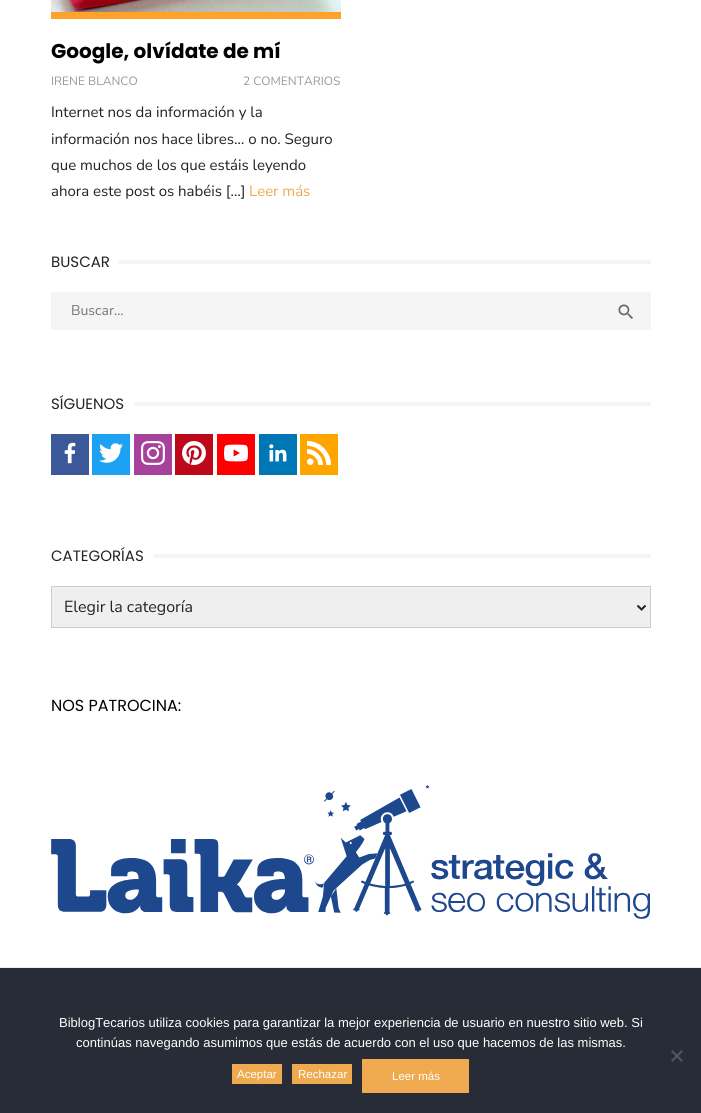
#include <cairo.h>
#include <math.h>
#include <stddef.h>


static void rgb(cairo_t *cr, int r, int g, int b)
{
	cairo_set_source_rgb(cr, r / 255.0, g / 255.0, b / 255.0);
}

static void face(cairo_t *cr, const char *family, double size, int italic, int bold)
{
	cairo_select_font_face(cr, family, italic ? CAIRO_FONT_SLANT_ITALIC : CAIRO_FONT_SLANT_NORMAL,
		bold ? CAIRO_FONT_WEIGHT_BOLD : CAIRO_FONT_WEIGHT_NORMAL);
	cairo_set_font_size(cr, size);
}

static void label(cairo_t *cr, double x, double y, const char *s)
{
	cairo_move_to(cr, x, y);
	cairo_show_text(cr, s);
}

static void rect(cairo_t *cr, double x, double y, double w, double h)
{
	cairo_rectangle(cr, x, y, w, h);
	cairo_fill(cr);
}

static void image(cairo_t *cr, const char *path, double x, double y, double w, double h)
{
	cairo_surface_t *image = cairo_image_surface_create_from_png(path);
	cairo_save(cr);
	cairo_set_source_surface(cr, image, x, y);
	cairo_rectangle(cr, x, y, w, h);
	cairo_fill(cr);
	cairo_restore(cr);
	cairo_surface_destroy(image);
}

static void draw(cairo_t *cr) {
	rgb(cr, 255, 255, 255);
	cairo_paint(cr);
	rgb(cr, 255, 162, 41);
	rect(cr, 51, 12, 290, 7);
	image(cr, "image0.png", 51, 0, 290, 12);
	face(cr, "Poppins", 20, 0, 1);
	rgb(cr, 0, 0, 0);
	label(cr, 51, 58, "Google, olvídate de mí");
	face(cr, "Nunito Sans", 12, 0, 0);
	rgb(cr, 153, 153, 153);
	label(cr, 51, 85, "IRENE BLANCO");
	label(cr, 243, 85, "2 COMENTARIOS");
	face(cr, "Nunito Sans", 15, 0, 0);
	rgb(cr, 34, 34, 34);
	label(cr, 51, 117, "Internet nos da información y la");
	label(cr, 51, 144, "información nos hace libres… o no. Seguro");
	label(cr, 51, 170, "que muchos de los que estáis leyendo");
	label(cr, 51, 196, "ahora este post os habéis […]");
	rgb(cr, 239, 169, 78);
	label(cr, 249, 196, "Leer más");
	face(cr, "Poppins", 15, 0, 0);
	rgb(cr, 34, 34, 34);
	label(cr, 51, 267, "BUSCAR");
	rgb(cr, 245, 245, 245);
	rect(cr, 119, 260, 532, 4);
	rect(cr, 51, 292, 600, 38);
	face(cr, "Nunito Sans", 14, 0, 0);
	rgb(cr, 117, 117, 117);
	label(cr, 71, 315, "Buscar...");
	image(cr, "image1.png", 618, 304, 15, 15);
	face(cr, "Poppins", 15, 0, 0);
	rgb(cr, 34, 34, 34);
	label(cr, 51, 409, "SÍGUENOS");
	rgb(cr, 245, 245, 245);
	rect(cr, 134, 402, 517, 4);
	rgb(cr, 59, 89, 152);
	rect(cr, 51, 434, 38, 41);
	image(cr, "image2.png", 64, 442, 12, 22);
	rgb(cr, 29, 161, 242);
	rect(cr, 92, 434, 38, 41);
	image(cr, "image3.png", 99, 443, 24, 20);
	rgb(cr, 166, 66, 156);
	rect(cr, 134, 434, 38, 41);
	image(cr, "image4.png", 141, 441, 24, 24);
	rgb(cr, 189, 8, 28);
	rect(cr, 175, 434, 38, 41);
	image(cr, "image5.png", 182, 441, 24, 24);
	rgb(cr, 255, 0, 0);
	rect(cr, 217, 434, 38, 41);
	image(cr, "image6.png", 224, 444, 24, 18);
	rgb(cr, 0, 119, 181);
	rect(cr, 259, 434, 38, 41);
	image(cr, "image7.png", 269, 444, 18, 18);
	rgb(cr, 255, 165, 0);
	rect(cr, 300, 434, 38, 41);
	image(cr, "image8.png", 307, 441, 24, 24);
	rgb(cr, 34, 34, 34);
	label(cr, 51, 561, "CATEGORÍAS");
	rgb(cr, 245, 245, 245);
	rect(cr, 153, 554, 498, 4);
	rgb(cr, 239, 239, 239);
	cairo_rectangle(cr, 51.5, 586.5, 599, 41);
	cairo_fill_preserve(cr);
	rgb(cr, 204, 204, 204);
	cairo_set_line_width(cr, 1);
	cairo_stroke(cr);
	cairo_new_path(cr);
	cairo_move_to(cr, 637.5, 605.5);
	cairo_line_to(cr, 641.5, 609.5);
	cairo_line_to(cr, 645.5, 605.5);
	rgb(cr, 34, 34, 34);
	cairo_set_line_width(cr, 2);
	cairo_stroke(cr);
	face(cr, "Nunito Sans", 16, 0, 0);
	label(cr, 64, 612, "Elegir la categoría");
	face(cr, "Poppins", 16, 0, 0);
	rgb(cr, 0, 0, 0);
	label(cr, 51, 711, "NOS PATROCINA:");
	image(cr, "image9.png", 51, 785, 599, 134);
	rgb(cr, 238, 238, 238);
	rect(cr, 0, 967, 701, 1);
	rgb(cr, 40, 44, 54);
	rect(cr, 0, 968, 701, 145);
	face(cr, "Liberation Sans", 13, 0, 0);
	rgb(cr, 255, 255, 255);
	label(cr, 59, 1027, "BiblogTecarios utiliza cookies para garantizar la mejor experiencia de usuario en nuestro sitio web. Si");
	label(cr, 76, 1047, "continúas navegando asumimos que estás de acuerdo con el uso que hacemos de las mismas.");
	rgb(cr, 84, 86, 91);
	cairo_new_path(cr);
	cairo_move_to(cr, 681.5, 1050);
	cairo_line_to(cr, 683, 1051.5);
	cairo_line_to(cr, 672.5, 1062);
	cairo_line_to(cr, 671, 1060.5);
	cairo_close_path(cr);
	cairo_fill(cr);
	cairo_new_path(cr);
	cairo_move_to(cr, 671, 1051.5);
	cairo_line_to(cr, 672.5, 1050);
	cairo_line_to(cr, 683, 1060.5);
	cairo_line_to(cr, 681.5, 1062);
	cairo_close_path(cr);
	cairo_fill(cr);
	rgb(cr, 239, 169, 78);
	rect(cr, 232, 1064, 50, 20);
	face(cr, "Liberation Sans", 11.5, 0, 0);
	rgb(cr, 255, 255, 255);
	label(cr, 237, 1078, "Aceptar");
	rgb(cr, 239, 169, 78);
	rect(cr, 292, 1064, 60, 20);
	rgb(cr, 255, 255, 255);
	label(cr, 298, 1078, "Rechazar");
	rgb(cr, 239, 169, 78);
	rect(cr, 362, 1059, 107, 34);
	rgb(cr, 255, 255, 255);
	label(cr, 392, 1080, "Leer más");
}

int main(void) {
	cairo_surface_t *surface = cairo_image_surface_create(CAIRO_FORMAT_RGB24, 701, 1113);
	cairo_t *cr = cairo_create(surface);
	cairo_font_options_t *options = cairo_font_options_create();
	cairo_font_options_set_hint_metrics(options, CAIRO_HINT_METRICS_OFF);
	cairo_font_options_set_hint_style(options, CAIRO_HINT_STYLE_NONE);
	cairo_set_font_options(cr, options);
	cairo_set_miter_limit(cr, 4);
	draw(cr);
	cairo_surface_write_to_png(surface, "render.png");
	cairo_font_options_destroy(options);
	cairo_destroy(cr);
	cairo_surface_destroy(surface);
	return 0;
}
